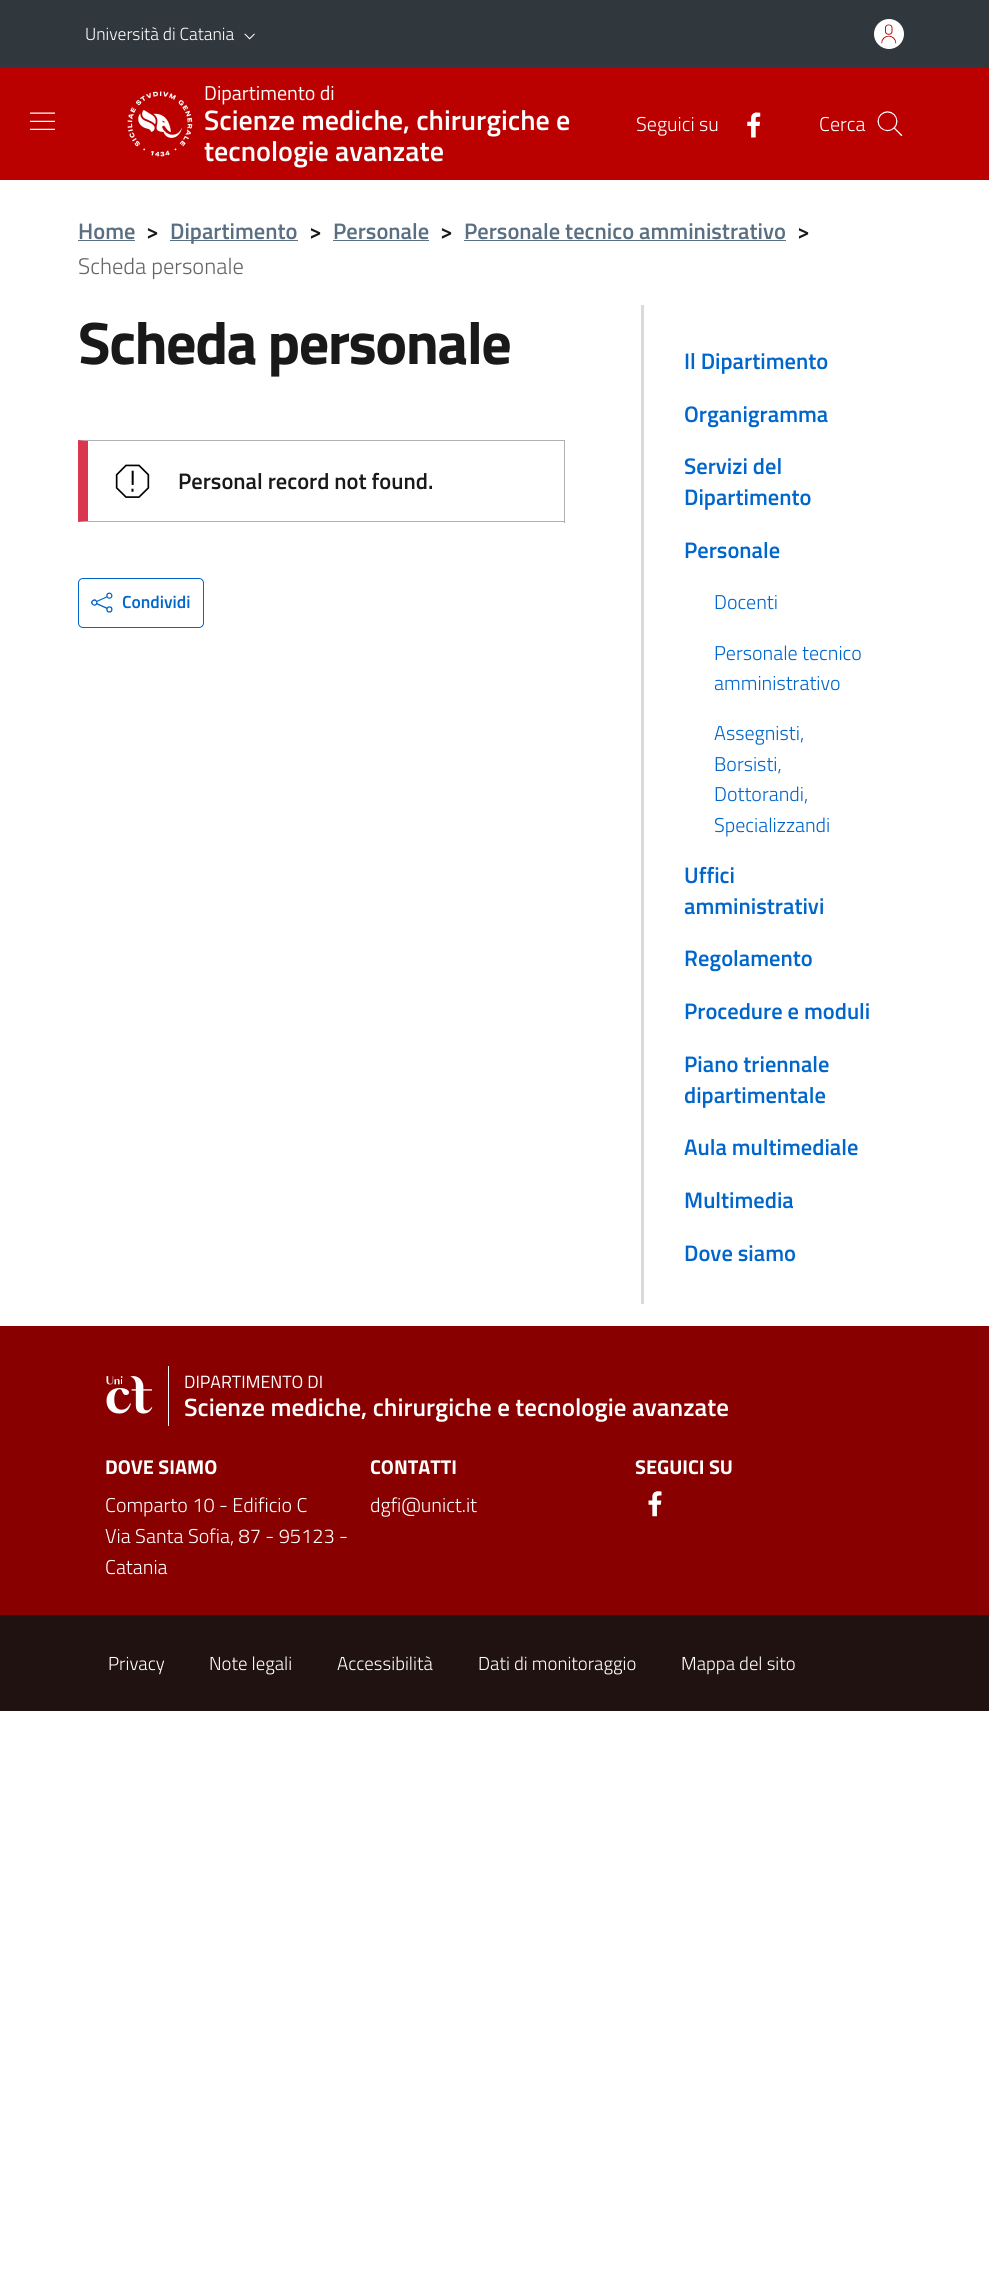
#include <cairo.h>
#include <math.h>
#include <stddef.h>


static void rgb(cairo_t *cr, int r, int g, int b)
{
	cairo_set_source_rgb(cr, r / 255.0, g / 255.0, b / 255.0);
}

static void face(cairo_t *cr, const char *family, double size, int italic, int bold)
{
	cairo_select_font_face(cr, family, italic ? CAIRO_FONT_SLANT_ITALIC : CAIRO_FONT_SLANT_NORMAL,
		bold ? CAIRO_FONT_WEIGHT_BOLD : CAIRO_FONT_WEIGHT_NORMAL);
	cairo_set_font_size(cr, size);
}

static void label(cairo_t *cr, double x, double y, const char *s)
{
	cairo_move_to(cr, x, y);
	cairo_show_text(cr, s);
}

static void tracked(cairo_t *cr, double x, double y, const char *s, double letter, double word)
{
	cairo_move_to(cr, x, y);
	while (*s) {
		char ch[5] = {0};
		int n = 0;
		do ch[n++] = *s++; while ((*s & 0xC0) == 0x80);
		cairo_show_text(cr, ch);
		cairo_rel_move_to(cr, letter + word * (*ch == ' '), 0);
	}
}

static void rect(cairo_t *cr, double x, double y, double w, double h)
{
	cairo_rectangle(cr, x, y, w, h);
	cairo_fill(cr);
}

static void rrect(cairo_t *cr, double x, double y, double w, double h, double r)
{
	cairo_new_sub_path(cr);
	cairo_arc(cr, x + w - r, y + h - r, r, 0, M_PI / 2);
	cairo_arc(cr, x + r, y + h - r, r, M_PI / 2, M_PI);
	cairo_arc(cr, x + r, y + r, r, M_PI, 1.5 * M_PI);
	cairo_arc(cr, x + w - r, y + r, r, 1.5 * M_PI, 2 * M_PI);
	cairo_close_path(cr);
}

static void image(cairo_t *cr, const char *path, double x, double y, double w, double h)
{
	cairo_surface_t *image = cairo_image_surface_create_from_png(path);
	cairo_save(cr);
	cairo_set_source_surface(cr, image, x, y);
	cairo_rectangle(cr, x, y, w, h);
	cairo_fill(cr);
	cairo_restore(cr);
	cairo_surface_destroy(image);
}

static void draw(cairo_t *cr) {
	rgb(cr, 255, 255, 255);
	cairo_paint(cr);
	rgb(cr, 48, 55, 61);
	rect(cr, 0, 0, 989, 68);
	face(cr, "Titillium Web Light", 17.5, 0, 0);
	rgb(cr, 255, 255, 255);
	label(cr, 85, 40, "Università di Catania");
	image(cr, "image0.png", 244, 33, 11, 7);
	cairo_arc(cr, 889, 34, 15, 0, 2 * M_PI);
	cairo_fill(cr);
	image(cr, "image1.png", 881, 24, 16, 20);
	rgb(cr, 187, 0, 0);
	rect(cr, 0, 68, 989, 112);
	image(cr, "image2.png", 30, 112, 25, 18);
	image(cr, "image3.png", 127, 91, 66, 66);
	face(cr, "Titillium Web", 20, 0, 0);
	rgb(cr, 255, 255, 255);
	label(cr, 204, 100, "Dipartimento di");
	face(cr, "Titillium Web SemiBold", 28.1, 0, 0);
	label(cr, 204, 130, "Scienze mediche, chirurgiche e");
	label(cr, 204, 161, "tecnologie avanzate");
	face(cr, "Titillium Web Light", 20, 0, 0);
	label(cr, 636, 131, "Seguici su");
	image(cr, "image4.png", 747, 112, 14, 26);
	label(cr, 819, 131, "Cerca");
	image(cr, "image5.png", 877, 111, 26, 26);
	face(cr, "Titillium Web SemiBold", 22.5, 0, 0);
	rgb(cr, 91, 111, 130);
	label(cr, 78, 239, "Home");
	rect(cr, 78, 240, 57, 1);
	rgb(cr, 25, 25, 26);
	label(cr, 146, 239, ">");
	rgb(cr, 91, 111, 130);
	rect(cr, 170, 240, 128, 1);
	label(cr, 170, 239, "Dipartimento");
	rgb(cr, 25, 25, 26);
	label(cr, 309, 239, ">");
	rgb(cr, 91, 111, 130);
	label(cr, 333, 239, "Personale");
	rect(cr, 333, 240, 96, 1);
	rgb(cr, 25, 25, 26);
	label(cr, 440, 239, ">");
	rgb(cr, 91, 111, 130);
	label(cr, 464, 239, "Personale tecnico amministrativo");
	rect(cr, 464, 240, 322, 1);
	rgb(cr, 25, 25, 26);
	label(cr, 797, 239, ">");
	face(cr, "Titillium Web Light", 22.5, 0, 0);
	rgb(cr, 101, 101, 102);
	label(cr, 78, 274, "Scheda personale");
	face(cr, "Titillium Web", 60, 0, 1);
	rgb(cr, 25, 25, 26);
	tracked(cr, 78, 364, "Scheda personale", -1.5, 0);
	image(cr, "image6.png", 115, 464, 35, 34);
	rgb(cr, 177, 177, 179);
	cairo_new_path(cr);
	cairo_move_to(cr, 78, 440);
	cairo_line_to(cr, 565, 440);
	cairo_line_to(cr, 564, 441);
	cairo_line_to(cr, 88, 441);
	cairo_close_path(cr);
	cairo_fill(cr);
	rect(cr, 564, 440, 1, 83);
	cairo_new_path(cr);
	cairo_move_to(cr, 565, 522);
	cairo_line_to(cr, 78, 522);
	cairo_line_to(cr, 88, 521);
	cairo_line_to(cr, 564, 521);
	cairo_close_path(cr);
	cairo_fill(cr);
	rgb(cr, 217, 54, 79);
	cairo_new_path(cr);
	cairo_move_to(cr, 78, 522);
	cairo_line_to(cr, 78, 440);
	cairo_line_to(cr, 88, 441);
	cairo_line_to(cr, 88, 521);
	cairo_close_path(cr);
	cairo_fill(cr);
	face(cr, "Titillium Web SemiBold", 22.5, 0, 0);
	rgb(cr, 25, 25, 26);
	label(cr, 178, 489, "Personal record not found.");
	rrect(cr, 78.5, 578.5, 125, 49, 4.5);
	rgb(cr, 0, 102, 204);
	cairo_set_line_width(cr, 1);
	cairo_stroke(cr);
	image(cr, "image7.png", 91, 592, 22, 21);
	face(cr, "Titillium Web SemiBold", 17.5, 0, 0);
	label(cr, 122, 608, "Condividi");
	rgb(cr, 217, 218, 219);
	rect(cr, 641, 305, 3, 999);
	face(cr, "Titillium Web SemiBold", 22.5, 0, 0);
	rgb(cr, 0, 102, 204);
	label(cr, 684, 369, "Il Dipartimento");
	label(cr, 684, 422, "Organigramma");
	label(cr, 684, 474, "Servizi del");
	label(cr, 684, 505, "Dipartimento");
	label(cr, 684, 558, "Personale");
	face(cr, "Titillium Web Light", 20, 0, 0);
	label(cr, 714, 609, "Docenti");
	label(cr, 714, 660, "Personale tecnico");
	label(cr, 714, 690, "amministrativo");
	label(cr, 714, 740, "Assegnisti,");
	label(cr, 714, 771, "Borsisti,");
	label(cr, 714, 801, "Dottorandi,");
	label(cr, 714, 832, "Specializzandi");
	face(cr, "Titillium Web SemiBold", 22.5, 0, 0);
	label(cr, 684, 883, "Uffici");
	label(cr, 684, 914, "amministrativi");
	label(cr, 684, 966, "Regolamento");
	label(cr, 684, 1019, "Procedure e moduli");
	label(cr, 684, 1072, "Piano triennale");
	label(cr, 684, 1103, "dipartimentale");
	label(cr, 684, 1155, "Aula multimediale");
	label(cr, 684, 1208, "Multimedia");
	label(cr, 684, 1261, "Dove siamo");
	rgb(cr, 136, 0, 0);
	rect(cr, 0, 1326, 989, 289);
	image(cr, "image8.png", 106, 1376, 47, 38);
	rgb(cr, 255, 255, 255);
	rect(cr, 168, 1366, 1, 60);
	face(cr, "Titillium Web", 17.75, 0, 0);
	label(cr, 184, 1388, "DIPARTIMENTO DI");
	face(cr, "Titillium Web SemiBold", 25, 0, 0);
	label(cr, 184, 1416, "Scienze mediche, chirurgiche e tecnologie avanzate");
	face(cr, "Titillium Web", 20, 0, 1);
	label(cr, 105, 1474, "DOVE SIAMO");
	face(cr, "Titillium Web Light", 20, 0, 0);
	label(cr, 105, 1512, "Comparto 10 - Edificio C");
	label(cr, 105, 1543, "Via Santa Sofia, 87 - 95123 -");
	label(cr, 105, 1574, "Catania");
	face(cr, "Titillium Web", 20, 0, 1);
	label(cr, 370, 1474, "CONTATTI");
	face(cr, "Titillium Web Light", 20, 0, 0);
	label(cr, 370, 1512, "dgfi@unict.it");
	face(cr, "Titillium Web", 20, 0, 1);
	label(cr, 635, 1474, "SEGUICI SU");
	image(cr, "image9.png", 648, 1491, 14, 26);
	rgb(cr, 33, 18, 18);
	rect(cr, 0, 1615, 989, 96);
	face(cr, "Titillium Web Light", 18.75, 0, 0);
	rgb(cr, 255, 255, 255);
	label(cr, 108, 1670, "Privacy");
	label(cr, 209, 1670, "Note legali");
	label(cr, 337, 1670, "Accessibilità");
	label(cr, 478, 1670, "Dati di monitoraggio");
	label(cr, 681, 1670, "Mappa del sito");
}

int main(void) {
	cairo_surface_t *surface = cairo_image_surface_create(CAIRO_FORMAT_RGB24, 989, 2269);
	cairo_t *cr = cairo_create(surface);
	cairo_font_options_t *options = cairo_font_options_create();
	cairo_font_options_set_hint_metrics(options, CAIRO_HINT_METRICS_OFF);
	cairo_font_options_set_hint_style(options, CAIRO_HINT_STYLE_NONE);
	cairo_set_font_options(cr, options);
	cairo_set_miter_limit(cr, 4);
	draw(cr);
	cairo_surface_write_to_png(surface, "render.png");
	cairo_font_options_destroy(options);
	cairo_destroy(cr);
	cairo_surface_destroy(surface);
	return 0;
}
